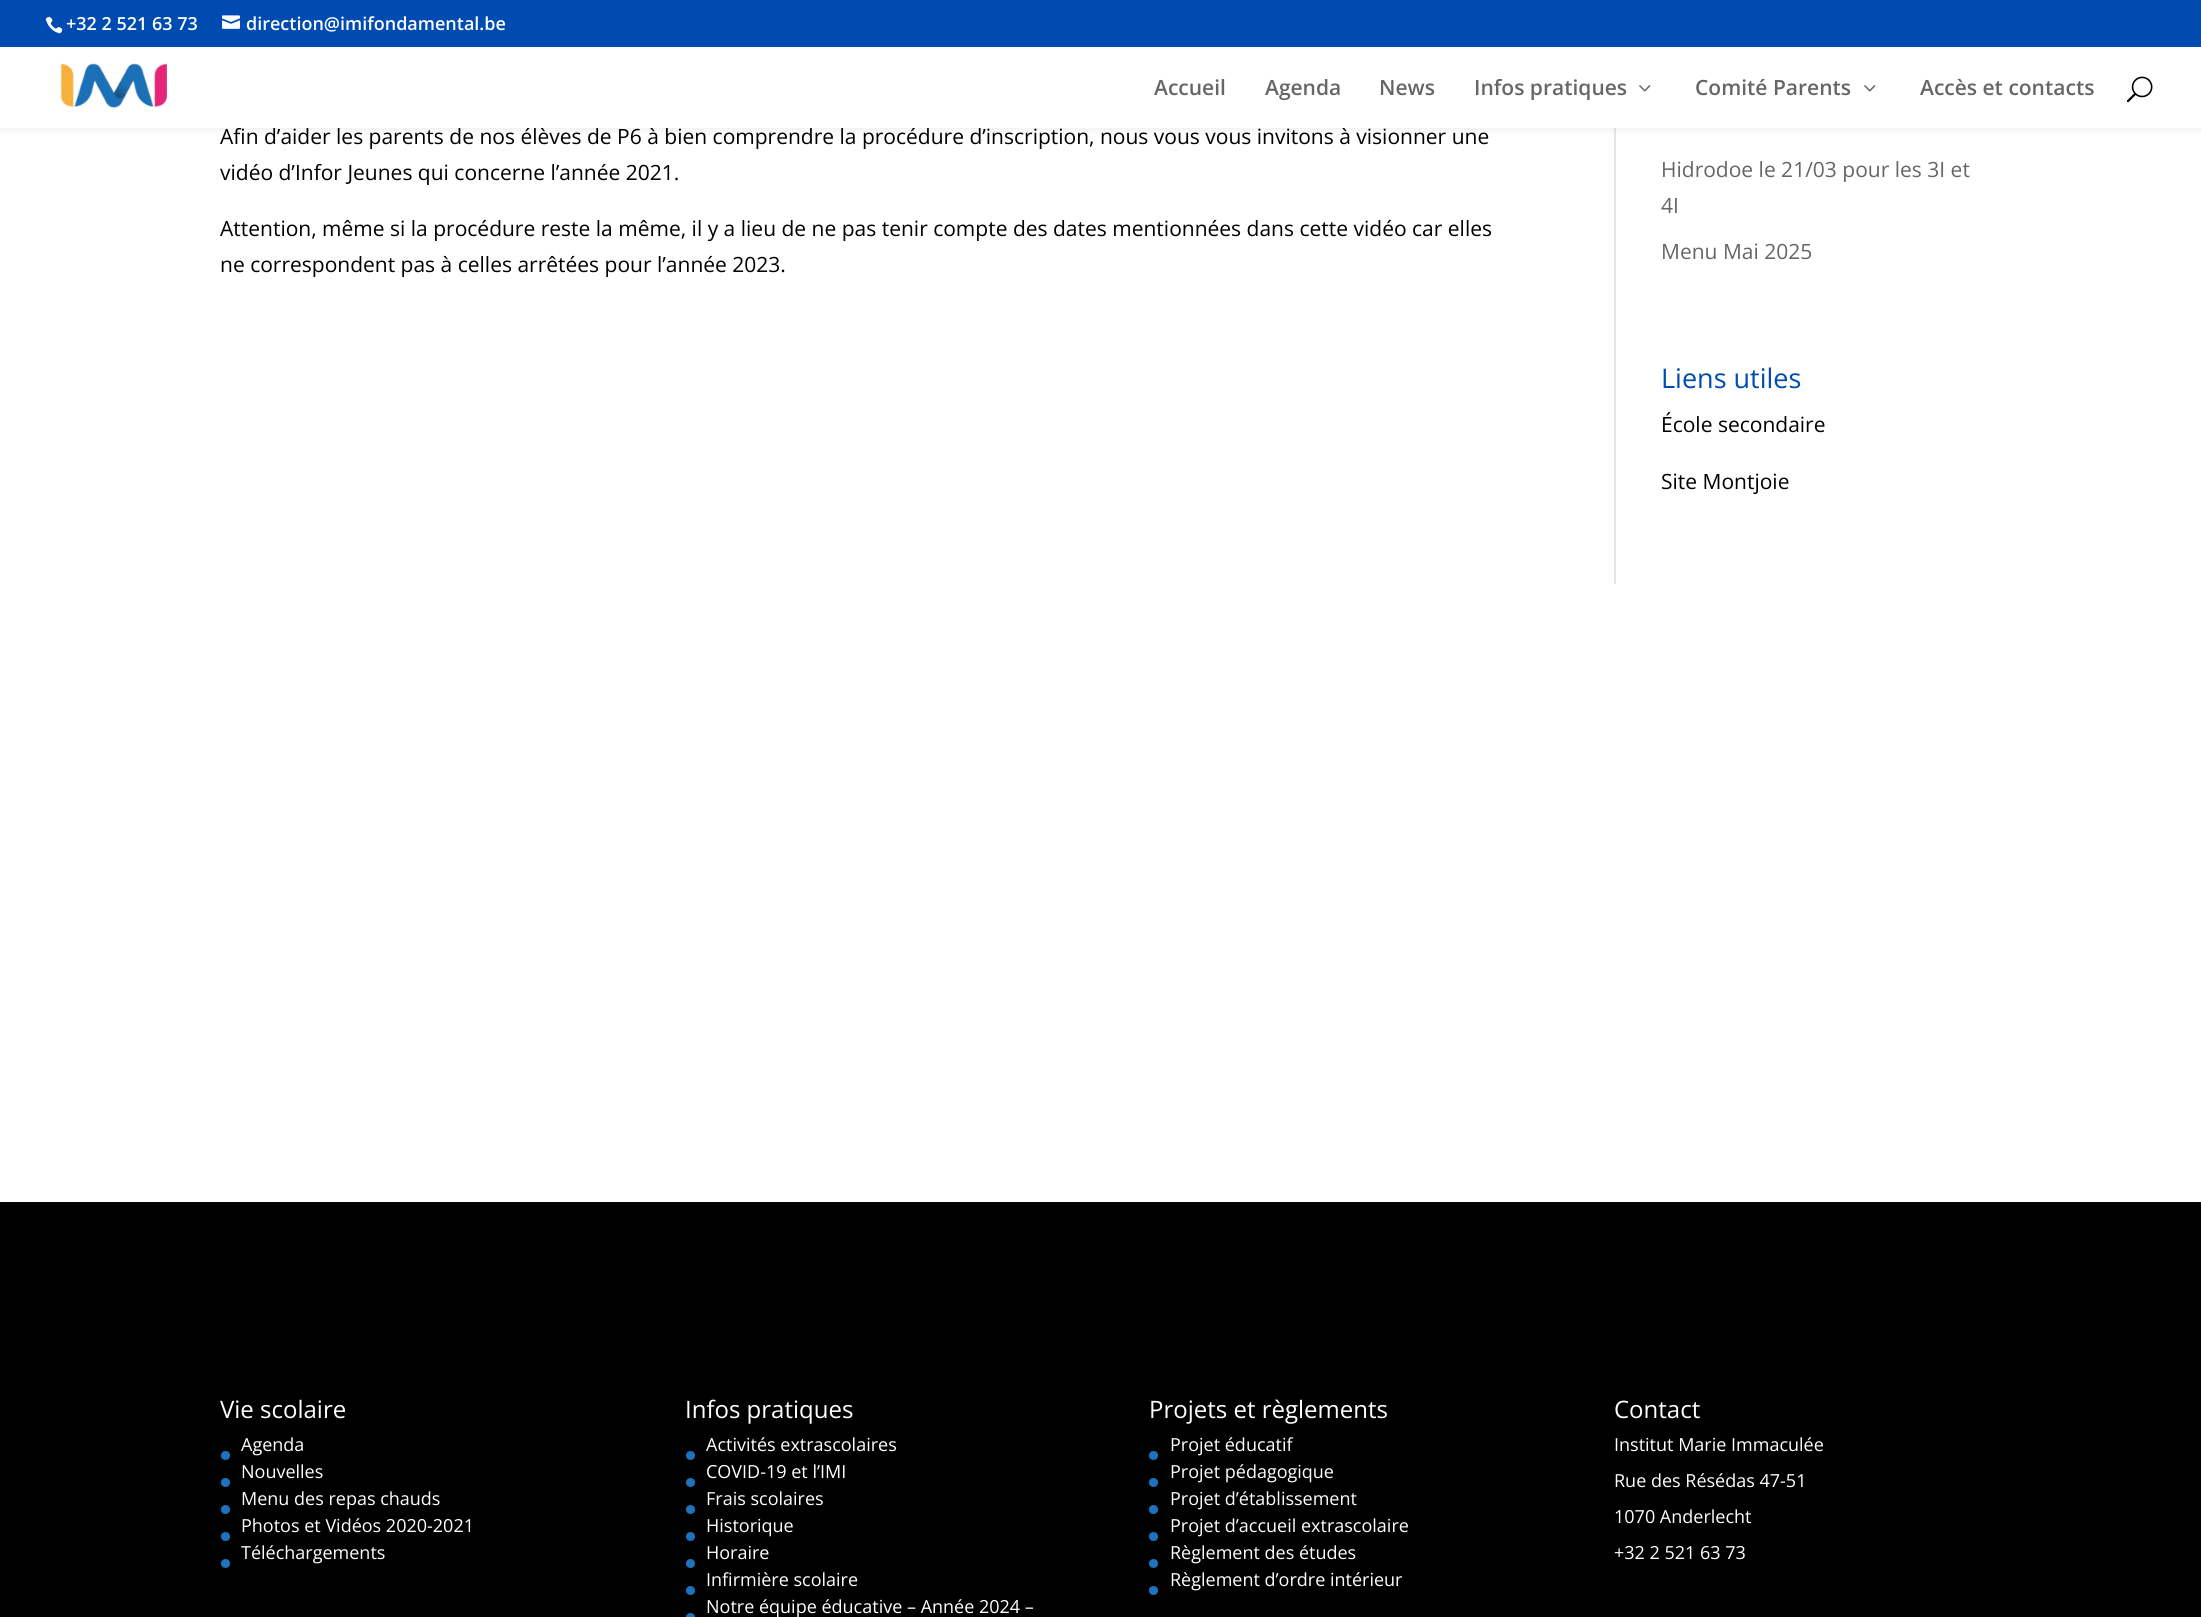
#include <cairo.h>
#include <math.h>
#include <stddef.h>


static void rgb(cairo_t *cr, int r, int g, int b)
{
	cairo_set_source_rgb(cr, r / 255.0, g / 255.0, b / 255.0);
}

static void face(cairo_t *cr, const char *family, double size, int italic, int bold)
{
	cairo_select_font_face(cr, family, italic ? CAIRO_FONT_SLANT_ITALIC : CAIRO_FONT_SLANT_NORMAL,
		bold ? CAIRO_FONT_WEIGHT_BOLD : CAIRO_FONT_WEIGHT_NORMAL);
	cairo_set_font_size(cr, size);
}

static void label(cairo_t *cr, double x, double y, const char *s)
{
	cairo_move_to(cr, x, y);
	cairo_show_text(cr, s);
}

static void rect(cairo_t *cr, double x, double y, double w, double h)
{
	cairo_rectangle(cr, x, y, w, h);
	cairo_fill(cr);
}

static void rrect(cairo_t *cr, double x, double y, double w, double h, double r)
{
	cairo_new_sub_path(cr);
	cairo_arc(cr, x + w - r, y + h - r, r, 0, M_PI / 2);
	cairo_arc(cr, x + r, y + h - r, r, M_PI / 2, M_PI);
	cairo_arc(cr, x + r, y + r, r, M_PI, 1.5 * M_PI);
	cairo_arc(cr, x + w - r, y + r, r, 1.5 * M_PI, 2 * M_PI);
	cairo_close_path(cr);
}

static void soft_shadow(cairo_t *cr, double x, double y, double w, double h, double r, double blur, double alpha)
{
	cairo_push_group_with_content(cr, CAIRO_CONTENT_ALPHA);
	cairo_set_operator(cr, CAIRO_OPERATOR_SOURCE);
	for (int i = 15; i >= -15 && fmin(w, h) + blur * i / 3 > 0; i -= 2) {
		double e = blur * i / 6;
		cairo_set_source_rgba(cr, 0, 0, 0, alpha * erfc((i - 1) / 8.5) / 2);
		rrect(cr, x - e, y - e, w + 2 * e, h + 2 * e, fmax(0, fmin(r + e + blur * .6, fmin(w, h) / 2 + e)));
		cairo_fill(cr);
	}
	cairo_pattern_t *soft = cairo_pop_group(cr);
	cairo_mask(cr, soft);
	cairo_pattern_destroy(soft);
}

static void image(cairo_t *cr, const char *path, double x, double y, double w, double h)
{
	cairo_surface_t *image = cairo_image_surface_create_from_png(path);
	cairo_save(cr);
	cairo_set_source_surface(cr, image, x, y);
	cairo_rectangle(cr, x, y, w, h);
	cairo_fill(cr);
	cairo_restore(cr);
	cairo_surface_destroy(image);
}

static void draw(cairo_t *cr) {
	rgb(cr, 255, 255, 255);
	cairo_paint(cr);
	rgb(cr, 230, 230, 230);
	rect(cr, 1614, 128, 2, 456);
	rgb(cr, 0, 0, 0);
	soft_shadow(cr, 0, 47, 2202, 81, 0, 5, 0.1);
	rgb(cr, 0, 75, 177);
	rect(cr, 0, 0, 2201, 47);
	image(cr, "image0.png", 45, 16, 18, 18);
	face(cr, "Open Sans SemiBold", 18, 0, 0);
	rgb(cr, 255, 255, 255);
	label(cr, 66, 30, "+32 2 521 63 73");
	image(cr, "image1.png", 222, 15, 18, 14);
	label(cr, 246, 30, "direction@imifondamental.be");
	face(cr, "Open Sans", 21, 0, 0);
	rgb(cr, 0, 0, 0);
	label(cr, 220, 144, "Afin d’aider les parents de nos élèves de P6 à bien comprendre la procédure d’inscription, nous vous vous invitons à visionner une");
	rgb(cr, 255, 255, 255);
	rect(cr, 0, 47, 2201, 81);
	image(cr, "image2.png", 60, 63, 107, 45);
	face(cr, "Open Sans SemiBold", 21, 0, 0);
	rgb(cr, 102, 102, 102);
	label(cr, 1154, 95, "Accueil");
	label(cr, 1265, 95, "Agenda");
	label(cr, 1379, 95, "News");
	label(cr, 1474, 95, "Infos pratiques");
	image(cr, "image3.png", 1639, 85, 12, 7);
	label(cr, 1695, 95, "Comité Parents");
	image(cr, "image3.png", 1864, 85, 12, 7);
	label(cr, 1920, 95, "Accès et contacts");
	image(cr, "image4.png", 2126, 76, 27, 27);
	face(cr, "Open Sans", 21, 0, 0);
	rgb(cr, 0, 0, 0);
	label(cr, 220, 180, "vidéo d’Infor Jeunes qui concerne l’année 2021.");
	label(cr, 220, 236, "Attention, même si la procédure reste la même, il y a lieu de ne pas tenir compte des dates mentionnées dans cette vidéo car elles");
	label(cr, 220, 272, "ne correspondent pas à celles arrêtées pour l’année 2023.");
	rgb(cr, 102, 102, 102);
	label(cr, 1661, 177, "Hidrodoe le 21/03 pour les 3I et");
	label(cr, 1661, 213, "4I");
	label(cr, 1661, 259, "Menu Mai 2025");
	face(cr, "Open Sans", 27, 0, 0);
	rgb(cr, 0, 75, 177);
	label(cr, 1661, 388, "Liens utiles");
	face(cr, "Open Sans", 21, 0, 0);
	rgb(cr, 0, 0, 0);
	label(cr, 1661, 432, "École secondaire");
	label(cr, 1661, 489, "Site Montjoie");
	rect(cr, 0, 1202, 2201, 415);
	face(cr, "Open Sans", 24, 0, 0);
	rgb(cr, 255, 255, 255);
	label(cr, 220, 1418, "Vie scolaire");
	rgb(cr, 30, 115, 190);
	cairo_new_path(cr);
	cairo_arc(cr, 225.5, 1455.5, 4.5, 0, 2 * M_PI);
	cairo_fill(cr);
	face(cr, "Open Sans", 18, 0, 0);
	rgb(cr, 255, 255, 255);
	label(cr, 241, 1451, "Agenda");
	label(cr, 241, 1478, "Nouvelles");
	rgb(cr, 30, 115, 190);
	cairo_new_path(cr);
	cairo_arc(cr, 225.5, 1482.5, 4.5, 0, 2 * M_PI);
	cairo_fill(cr);
	cairo_arc(cr, 225.5, 1509.5, 4.5, 0, 2 * M_PI);
	cairo_fill(cr);
	rgb(cr, 255, 255, 255);
	label(cr, 241, 1505, "Menu des repas chauds");
	label(cr, 241, 1532, "Photos et Vidéos 2020-2021");
	rgb(cr, 30, 115, 190);
	cairo_new_path(cr);
	cairo_arc(cr, 225.5, 1536.5, 4.5, 0, 2 * M_PI);
	cairo_fill(cr);
	cairo_arc(cr, 225.5, 1563.5, 4.5, 0, 2 * M_PI);
	cairo_fill(cr);
	rgb(cr, 255, 255, 255);
	label(cr, 241, 1559, "Téléchargements");
	face(cr, "Open Sans", 24, 0, 0);
	label(cr, 685, 1418, "Infos pratiques");
	face(cr, "Open Sans", 18, 0, 0);
	label(cr, 706, 1451, "Activités extrascolaires");
	rgb(cr, 30, 115, 190);
	cairo_new_path(cr);
	cairo_arc(cr, 690.5, 1455.5, 4.5, 0, 2 * M_PI);
	cairo_fill(cr);
	rgb(cr, 255, 255, 255);
	label(cr, 706, 1478, "COVID-19 et l’IMI");
	rgb(cr, 30, 115, 190);
	cairo_new_path(cr);
	cairo_arc(cr, 690.5, 1482.5, 4.5, 0, 2 * M_PI);
	cairo_fill(cr);
	rgb(cr, 255, 255, 255);
	label(cr, 706, 1505, "Frais scolaires");
	rgb(cr, 30, 115, 190);
	cairo_new_path(cr);
	cairo_arc(cr, 690.5, 1509.5, 4.5, 0, 2 * M_PI);
	cairo_fill(cr);
	cairo_arc(cr, 690.5, 1536.5, 4.5, 0, 2 * M_PI);
	cairo_fill(cr);
	rgb(cr, 255, 255, 255);
	label(cr, 706, 1532, "Historique");
	label(cr, 706, 1559, "Horaire");
	rgb(cr, 30, 115, 190);
	cairo_new_path(cr);
	cairo_arc(cr, 690.5, 1563.5, 4.5, 0, 2 * M_PI);
	cairo_fill(cr);
	rgb(cr, 255, 255, 255);
	label(cr, 706, 1586, "Infirmière scolaire");
	rgb(cr, 30, 115, 190);
	cairo_new_path(cr);
	cairo_arc(cr, 690.5, 1590.5, 4.5, 0, 2 * M_PI);
	cairo_fill(cr);
	cairo_arc(cr, 690.5, 1617.5, 4.5, 0, 2 * M_PI);
	cairo_fill(cr);
	rgb(cr, 255, 255, 255);
	label(cr, 706, 1613, "Notre équipe éducative – Année 2024 –");
	face(cr, "Open Sans", 24, 0, 0);
	label(cr, 1149, 1418, "Projets et règlements");
	rgb(cr, 30, 115, 190);
	cairo_new_path(cr);
	cairo_arc(cr, 1153.5, 1455.5, 4.5, 0, 2 * M_PI);
	cairo_fill(cr);
	face(cr, "Open Sans", 18, 0, 0);
	rgb(cr, 255, 255, 255);
	label(cr, 1170, 1451, "Projet éducatif");
	rgb(cr, 30, 115, 190);
	cairo_new_path(cr);
	cairo_arc(cr, 1153.5, 1482.5, 4.5, 0, 2 * M_PI);
	cairo_fill(cr);
	rgb(cr, 255, 255, 255);
	label(cr, 1170, 1478, "Projet pédagogique");
	rgb(cr, 30, 115, 190);
	cairo_new_path(cr);
	cairo_arc(cr, 1153.5, 1509.5, 4.5, 0, 2 * M_PI);
	cairo_fill(cr);
	rgb(cr, 255, 255, 255);
	label(cr, 1170, 1505, "Projet d’établissement");
	rgb(cr, 30, 115, 190);
	cairo_new_path(cr);
	cairo_arc(cr, 1153.5, 1536.5, 4.5, 0, 2 * M_PI);
	cairo_fill(cr);
	rgb(cr, 255, 255, 255);
	label(cr, 1170, 1532, "Projet d’accueil extrascolaire");
	rgb(cr, 30, 115, 190);
	cairo_new_path(cr);
	cairo_arc(cr, 1153.5, 1563.5, 4.5, 0, 2 * M_PI);
	cairo_fill(cr);
	rgb(cr, 255, 255, 255);
	label(cr, 1170, 1559, "Règlement des études");
	rgb(cr, 30, 115, 190);
	cairo_new_path(cr);
	cairo_arc(cr, 1153.5, 1590.5, 4.5, 0, 2 * M_PI);
	cairo_fill(cr);
	rgb(cr, 255, 255, 255);
	label(cr, 1170, 1586, "Règlement d’ordre intérieur");
	face(cr, "Open Sans", 24, 0, 0);
	label(cr, 1614, 1418, "Contact");
	face(cr, "Open Sans", 18, 0, 0);
	label(cr, 1614, 1451, "Institut Marie Immaculée");
	label(cr, 1614, 1487, "Rue des Résédas 47-51");
	label(cr, 1614, 1523, "1070 Anderlecht");
	label(cr, 1614, 1559, "+32 2 521 63 73");
}

int main(void) {
	cairo_surface_t *surface = cairo_image_surface_create(CAIRO_FORMAT_RGB24, 2201, 1617);
	cairo_t *cr = cairo_create(surface);
	cairo_font_options_t *options = cairo_font_options_create();
	cairo_font_options_set_hint_metrics(options, CAIRO_HINT_METRICS_OFF);
	cairo_font_options_set_hint_style(options, CAIRO_HINT_STYLE_NONE);
	cairo_set_font_options(cr, options);
	cairo_set_miter_limit(cr, 4);
	draw(cr);
	cairo_surface_write_to_png(surface, "render.png");
	cairo_font_options_destroy(options);
	cairo_destroy(cr);
	cairo_surface_destroy(surface);
	return 0;
}
